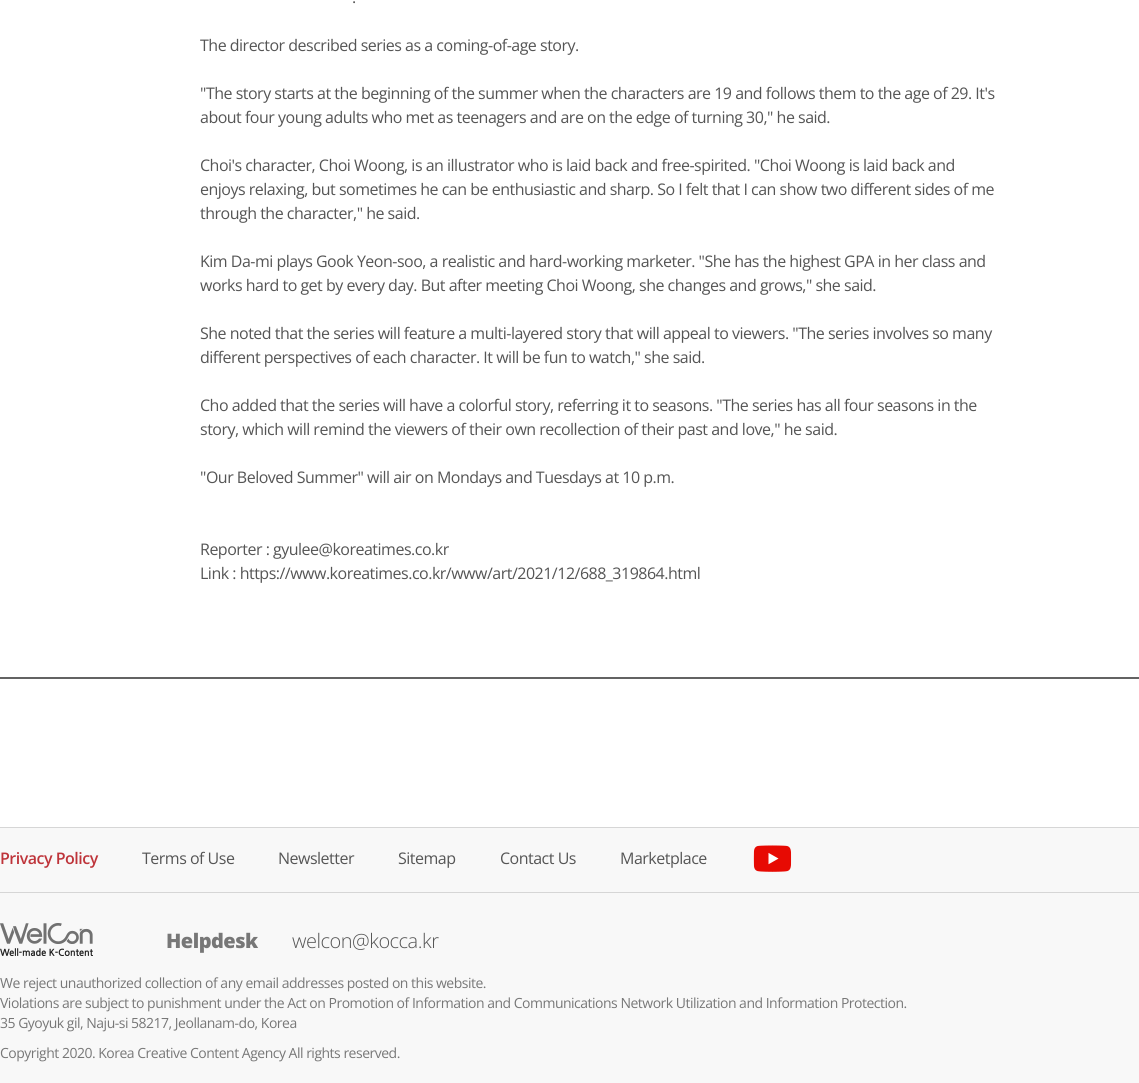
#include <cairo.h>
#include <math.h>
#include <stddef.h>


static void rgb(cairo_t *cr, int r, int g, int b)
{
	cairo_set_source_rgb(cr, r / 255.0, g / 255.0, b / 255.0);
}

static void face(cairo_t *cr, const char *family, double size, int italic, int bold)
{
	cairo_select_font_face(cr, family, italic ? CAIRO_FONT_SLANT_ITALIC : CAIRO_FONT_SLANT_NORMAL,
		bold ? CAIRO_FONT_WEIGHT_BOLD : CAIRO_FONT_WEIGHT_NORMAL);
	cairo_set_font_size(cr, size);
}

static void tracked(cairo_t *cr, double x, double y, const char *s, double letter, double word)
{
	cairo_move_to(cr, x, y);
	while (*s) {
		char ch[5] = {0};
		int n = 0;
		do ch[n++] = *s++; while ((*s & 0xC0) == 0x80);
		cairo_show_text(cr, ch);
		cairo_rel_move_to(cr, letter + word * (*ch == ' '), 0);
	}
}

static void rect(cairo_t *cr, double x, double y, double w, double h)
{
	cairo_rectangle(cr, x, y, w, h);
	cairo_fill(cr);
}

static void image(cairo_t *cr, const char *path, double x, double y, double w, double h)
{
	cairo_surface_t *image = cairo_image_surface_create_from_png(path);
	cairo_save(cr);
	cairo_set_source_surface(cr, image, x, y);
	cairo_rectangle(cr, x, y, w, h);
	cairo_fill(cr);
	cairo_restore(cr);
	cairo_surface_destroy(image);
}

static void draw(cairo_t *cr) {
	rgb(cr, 255, 255, 255);
	cairo_paint(cr);
	face(cr, "Open Sans", 16, 0, 0);
	rgb(cr, 85, 85, 85);
	tracked(cr, 352, 3, ".", -0.5, 0);
	tracked(cr, 200, 51, "The director described series as a coming-of-age story.", -0.5, 0);
	tracked(cr, 200, 99, "\"The story starts at the beginning of the summer when the characters are 19 and follows them to the age of 29. It's", -0.5, 0);
	tracked(cr, 200, 123, "about four young adults who met as teenagers and are on the edge of turning 30,\" he said.", -0.5, 0);
	tracked(cr, 200, 171, "Choi's character, Choi Woong, is an illustrator who is laid back and free-spirited. \"Choi Woong is laid back and", -0.5, 0);
	tracked(cr, 200, 195, "enjoys relaxing, but sometimes he can be enthusiastic and sharp. So I felt that I can show two different sides of me", -0.5, 0);
	tracked(cr, 200, 219, "through the character,\" he said.", -0.5, 0);
	tracked(cr, 200, 267, "Kim Da-mi plays Gook Yeon-soo, a realistic and hard-working marketer. \"She has the highest GPA in her class and", -0.5, 0);
	tracked(cr, 200, 291, "works hard to get by every day. But after meeting Choi Woong, she changes and grows,\" she said.", -0.5, 0);
	tracked(cr, 200, 339, "She noted that the series will feature a multi-layered story that will appeal to viewers. \"The series involves so many", -0.5, 0);
	tracked(cr, 200, 363, "different perspectives of each character. It will be fun to watch,\" she said.", -0.5, 0);
	tracked(cr, 200, 411, "Cho added that the series will have a colorful story, referring it to seasons. \"The series has all four seasons in the", -0.5, 0);
	tracked(cr, 200, 435, "story, which will remind the viewers of their own recollection of their past and love,\" he said.", -0.5, 0);
	tracked(cr, 200, 483, "\"Our Beloved Summer\" will air on Mondays and Tuesdays at 10 p.m.", -0.5, 0);
	tracked(cr, 200, 555, "Reporter : gyulee@koreatimes.co.kr", -0.5, 0);
	tracked(cr, 200, 579, "Link : https://www.koreatimes.co.kr/www/art/2021/12/688_319864.html", -0.5, 0);
	rgb(cr, 99, 99, 99);
	rect(cr, 0, 677, 1139, 2);
	rgb(cr, 248, 248, 248);
	rect(cr, 0, 828, 1139, 255);
	rgb(cr, 214, 214, 214);
	rect(cr, 0, 827, 1139, 1);
	rect(cr, 0, 892, 1139, 1);
	face(cr, "Open Sans SemiBold", 16, 0, 0);
	rgb(cr, 190, 52, 58);
	tracked(cr, 0, 864, "Privacy Policy", -0.5, 0);
	face(cr, "Open Sans", 16, 0, 0);
	rgb(cr, 85, 85, 85);
	tracked(cr, 142, 864, "Terms of Use", -0.5, 0);
	tracked(cr, 278, 864, "Newsletter", -0.5, 0);
	tracked(cr, 398, 864, "Sitemap", -0.5, 0);
	tracked(cr, 500, 864, "Contact Us", -0.5, 0);
	tracked(cr, 620, 864, "Marketplace", -0.5, 0);
	image(cr, "image0.png", 753, 845, 39, 27);
	image(cr, "image1.png", 0, 923, 93, 33);
	face(cr, "Open Sans ExtraBold", 20, 0, 0);
	rgb(cr, 119, 119, 119);
	tracked(cr, 166, 948, "Helpdesk", -0.5, 0);
	face(cr, "Open Sans Light", 20, 0, 0);
	rgb(cr, 85, 85, 85);
	tracked(cr, 292, 948, "welcon@kocca.kr", -0.5, 0);
	face(cr, "Open Sans", 14, 0, 0);
	rgb(cr, 119, 119, 119);
	tracked(cr, 0, 988, "We reject unauthorized collection of any email addresses posted on this website.", -0.5, 0);
	tracked(cr, 0, 1008, "Violations are subject to punishment under the Act on Promotion of Information and Communications Network Utilization and Information Protection.", -0.5, 0);
	tracked(cr, 0, 1028, "35 Gyoyuk gil, Naju-si 58217, Jeollanam-do, Korea", -0.5, 0);
	tracked(cr, 0, 1058, "Copyright 2020. Korea Creative Content Agency All rights reserved.", -0.5, 0);
}

int main(void) {
	cairo_surface_t *surface = cairo_image_surface_create(CAIRO_FORMAT_RGB24, 1139, 1083);
	cairo_t *cr = cairo_create(surface);
	cairo_font_options_t *options = cairo_font_options_create();
	cairo_font_options_set_hint_metrics(options, CAIRO_HINT_METRICS_OFF);
	cairo_font_options_set_hint_style(options, CAIRO_HINT_STYLE_NONE);
	cairo_set_font_options(cr, options);
	cairo_set_miter_limit(cr, 4);
	draw(cr);
	cairo_surface_write_to_png(surface, "render.png");
	cairo_font_options_destroy(options);
	cairo_destroy(cr);
	cairo_surface_destroy(surface);
	return 0;
}
